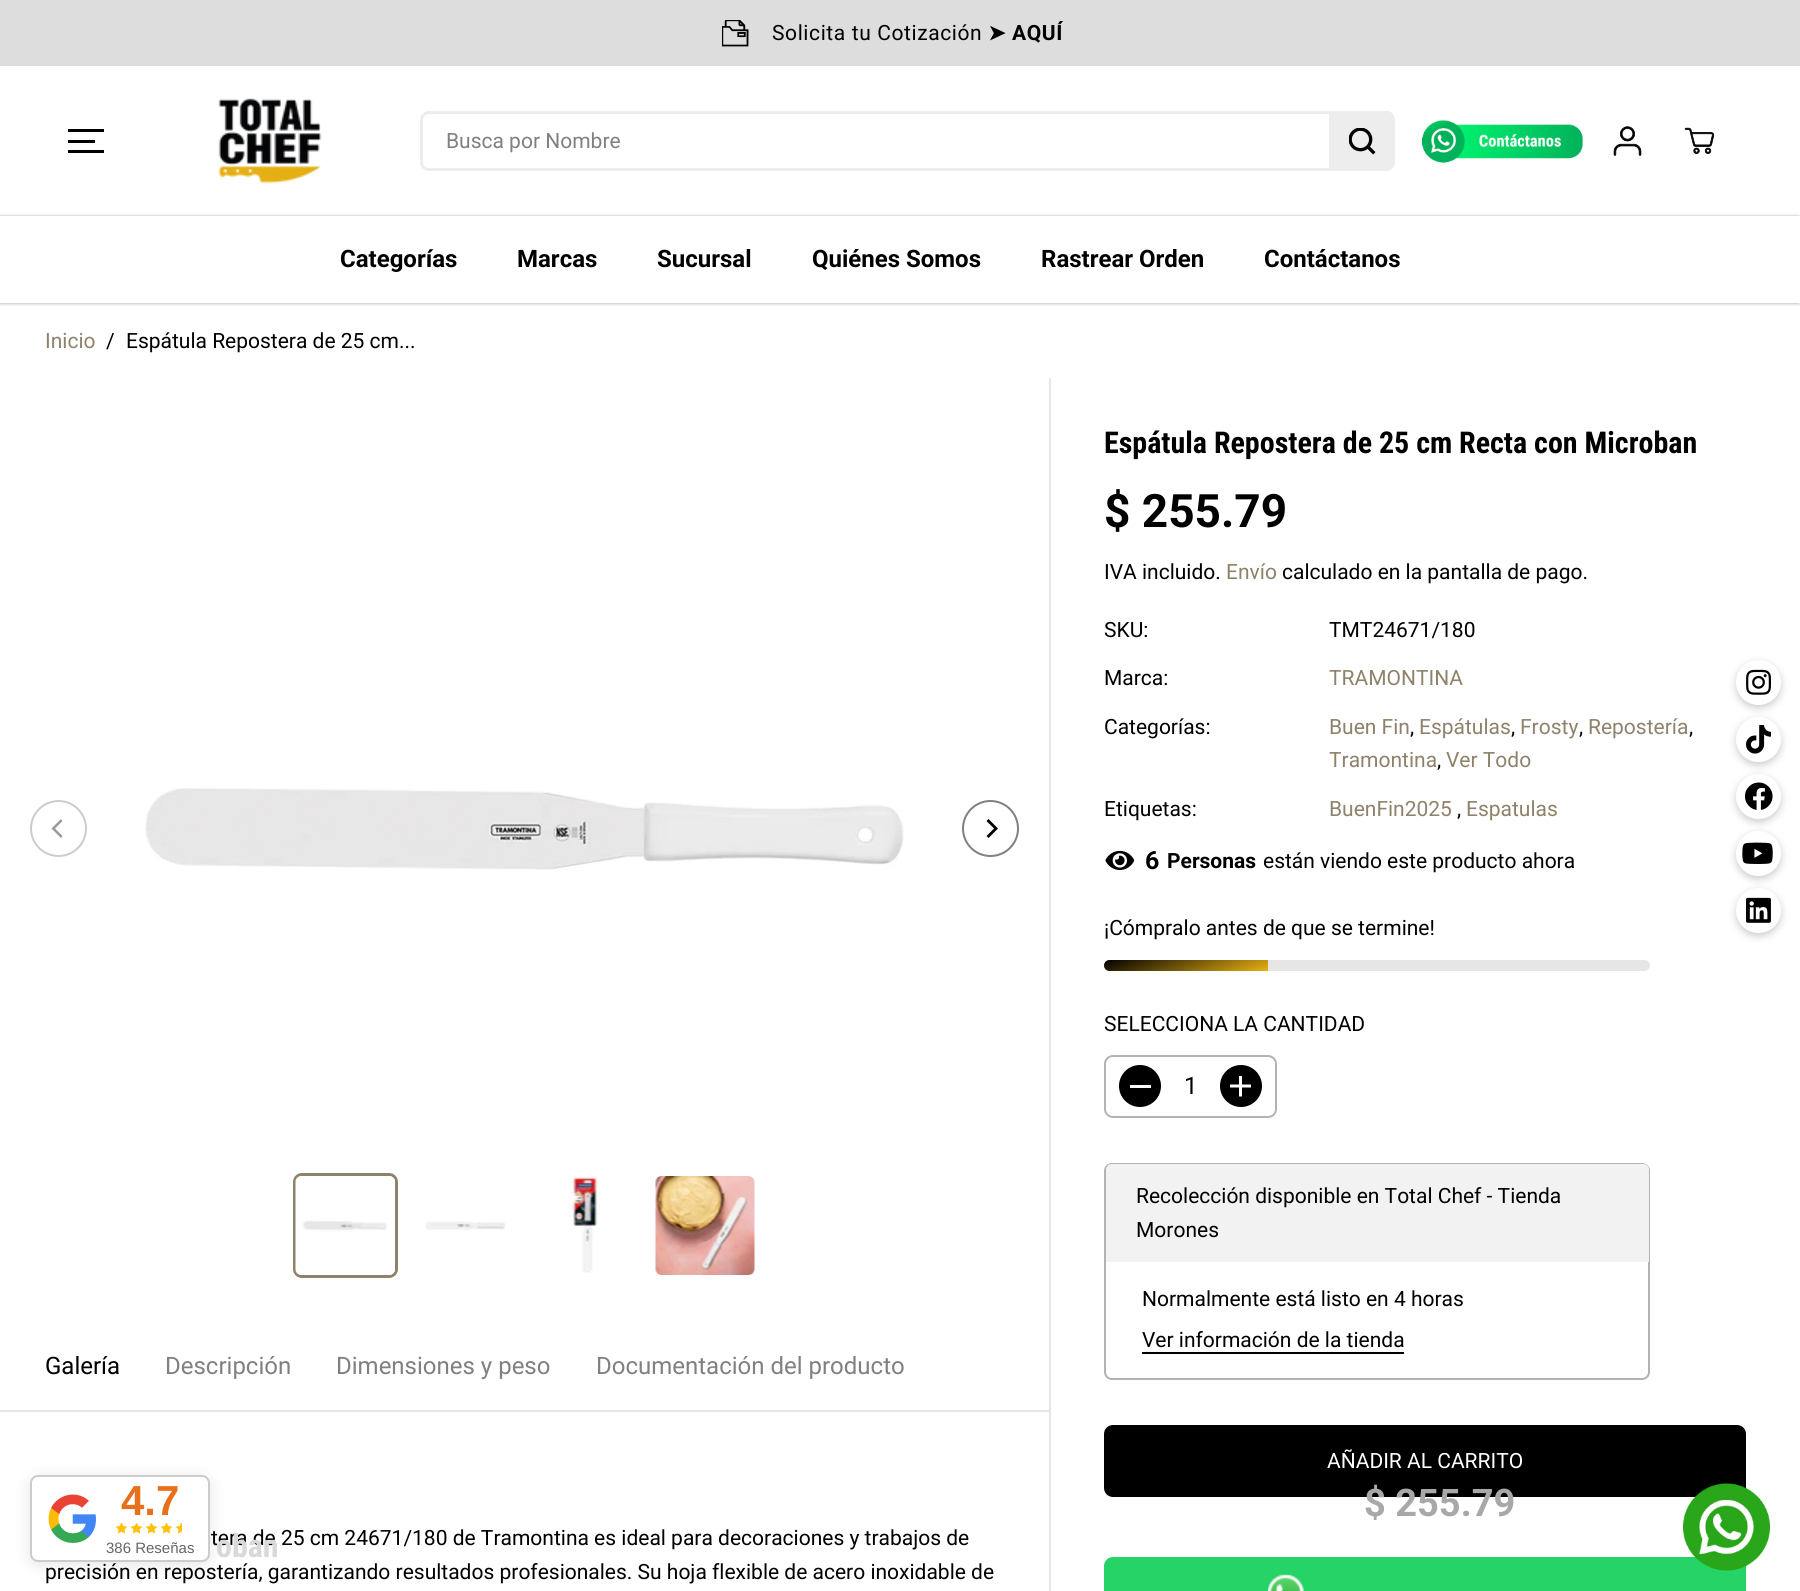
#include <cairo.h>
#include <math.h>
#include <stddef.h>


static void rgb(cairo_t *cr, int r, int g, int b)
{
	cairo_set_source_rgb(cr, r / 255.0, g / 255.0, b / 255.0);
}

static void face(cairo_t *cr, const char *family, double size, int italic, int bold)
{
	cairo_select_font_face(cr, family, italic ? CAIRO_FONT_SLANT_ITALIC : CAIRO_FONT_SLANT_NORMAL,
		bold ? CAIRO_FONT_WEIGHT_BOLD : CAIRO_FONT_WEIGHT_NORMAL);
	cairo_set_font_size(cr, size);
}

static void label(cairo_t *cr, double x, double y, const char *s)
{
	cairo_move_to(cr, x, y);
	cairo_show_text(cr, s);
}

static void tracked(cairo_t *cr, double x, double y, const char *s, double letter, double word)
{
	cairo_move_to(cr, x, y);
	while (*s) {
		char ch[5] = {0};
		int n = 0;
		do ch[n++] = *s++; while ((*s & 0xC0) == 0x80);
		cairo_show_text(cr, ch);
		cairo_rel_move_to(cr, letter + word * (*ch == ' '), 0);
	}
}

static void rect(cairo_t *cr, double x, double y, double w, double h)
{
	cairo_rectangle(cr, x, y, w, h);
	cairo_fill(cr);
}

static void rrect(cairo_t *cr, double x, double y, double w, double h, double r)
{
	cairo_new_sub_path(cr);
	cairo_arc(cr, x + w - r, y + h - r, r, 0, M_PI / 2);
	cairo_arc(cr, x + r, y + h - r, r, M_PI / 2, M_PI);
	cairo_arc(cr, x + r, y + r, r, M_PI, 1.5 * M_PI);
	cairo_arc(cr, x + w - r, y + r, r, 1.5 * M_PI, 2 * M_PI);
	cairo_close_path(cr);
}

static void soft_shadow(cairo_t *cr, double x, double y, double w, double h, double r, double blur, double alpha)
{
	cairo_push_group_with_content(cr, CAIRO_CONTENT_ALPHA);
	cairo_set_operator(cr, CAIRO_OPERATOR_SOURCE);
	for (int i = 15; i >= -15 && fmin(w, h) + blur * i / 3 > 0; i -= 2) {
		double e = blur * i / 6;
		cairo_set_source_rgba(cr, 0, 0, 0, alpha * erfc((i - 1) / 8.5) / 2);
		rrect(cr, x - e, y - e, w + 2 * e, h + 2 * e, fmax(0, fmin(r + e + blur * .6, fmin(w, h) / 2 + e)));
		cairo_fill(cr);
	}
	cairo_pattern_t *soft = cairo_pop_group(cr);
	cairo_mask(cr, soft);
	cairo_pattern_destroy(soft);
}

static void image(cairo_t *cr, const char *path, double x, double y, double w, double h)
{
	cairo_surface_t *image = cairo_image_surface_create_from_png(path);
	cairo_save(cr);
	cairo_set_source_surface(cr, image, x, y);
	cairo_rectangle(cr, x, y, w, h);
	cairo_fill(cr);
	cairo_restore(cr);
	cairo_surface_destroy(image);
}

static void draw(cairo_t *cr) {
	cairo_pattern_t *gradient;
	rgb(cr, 255, 255, 255);
	cairo_paint(cr);
	cairo_save(cr);
	cairo_rectangle(cr, 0, 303, 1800, 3);
	cairo_clip(cr);
	rgb(cr, 0, 0, 0);
	soft_shadow(cr, 0, 69, 1800, 237, 0, 1.5, 0.05);
	cairo_restore(cr);
	rgb(cr, 221, 221, 221);
	rect(cr, 0, 0, 1800, 66);
	image(cr, "image0.png", 722, 20, 27, 27);
	face(cr, "Roboto", 21, 0, 0);
	rgb(cr, 0, 0, 0);
	tracked(cr, 772, 40, "Solicita tu Cotización", 0.6, 0);
	face(cr, "DejaVu Sans", 21, 0, 1);
	tracked(cr, 988, 40, "➤", 0.6, 0);
	face(cr, "Roboto", 21, 0, 1);
	tracked(cr, 1012, 40, "AQUÍ", 0.6, 0);
	rect(cr, 68, 140, 27, 3);
	rect(cr, 68, 129, 36, 3);
	rect(cr, 68, 150, 36, 3);
	image(cr, "image1.png", 218, 98, 104, 86);
	rrect(cr, 421.5, 112.5, 972, 57, 7.5);
	rgb(cr, 237, 237, 237);
	cairo_set_line_width(cr, 3);
	cairo_stroke(cr);
	face(cr, "Roboto", 21, 0, 0);
	rgb(cr, 128, 128, 128);
	label(cr, 446, 148, "Busca por Nombre");
	rgb(cr, 237, 237, 237);
	cairo_new_path(cr);
	cairo_move_to(cr, 1329, 111);
	cairo_line_to(cr, 1386, 111);
	cairo_curve_to(cr, 1391, 111, 1395, 115, 1395, 120);
	cairo_line_to(cr, 1395, 162);
	cairo_curve_to(cr, 1395, 167, 1391, 171, 1386, 171);
	cairo_line_to(cr, 1329, 171);
	cairo_close_path(cr);
	cairo_fill(cr);
	image(cr, "image2.png", 1349, 128, 27, 27);
	image(cr, "image3.png", 1421, 120, 162, 43);
	image(cr, "image4.png", 1613, 126, 29, 30);
	image(cr, "image5.png", 1684, 127, 31, 27);
	cairo_save(cr);
	cairo_set_fill_rule(cr, CAIRO_FILL_RULE_EVEN_ODD);
	cairo_new_path(cr);
	cairo_move_to(cr, 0, 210);
	cairo_line_to(cr, 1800, 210);
	cairo_line_to(cr, 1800, 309);
	cairo_line_to(cr, 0, 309);
	cairo_close_path(cr);
	cairo_move_to(cr, 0, 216);
	cairo_line_to(cr, 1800, 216);
	cairo_line_to(cr, 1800, 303);
	cairo_line_to(cr, 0, 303);
	cairo_close_path(cr);
	cairo_clip(cr);
	rgb(cr, 0, 0, 0);
	soft_shadow(cr, -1, 216, 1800, 87, 0, 1.5, 0.3);
	cairo_restore(cr);
	face(cr, "Roboto", 24, 0, 1);
	rgb(cr, 0, 0, 0);
	label(cr, 340, 267, "Categorías");
	label(cr, 517, 267, "Marcas");
	label(cr, 657, 267, "Sucursal");
	label(cr, 812, 267, "Quiénes Somos");
	label(cr, 1041, 267, "Rastrear Orden");
	label(cr, 1264, 267, "Contáctanos");
	face(cr, "Roboto", 21, 0, 0);
	rgb(cr, 143, 130, 107);
	label(cr, 45, 348, "Inicio");
	rgb(cr, 0, 0, 0);
	label(cr, 106, 348, "/");
	label(cr, 126, 348, "Espátula Repostera de 25 cm...");
	rgb(cr, 230, 230, 230);
	rect(cr, 1049, 378, 2, 1213);
	cairo_new_path(cr);
	cairo_arc(cr, 58.5, 828.5, 27.5, 0, 2 * M_PI);
	rgb(cr, 204, 204, 204);
	cairo_set_line_width(cr, 2);
	cairo_stroke(cr);
	rgb(cr, 153, 153, 153);
	cairo_new_path(cr);
	cairo_move_to(cr, 51.5, 828.5);
	cairo_line_to(cr, 61, 838);
	cairo_line_to(cr, 62.5, 836);
	cairo_line_to(cr, 55, 828.5);
	cairo_line_to(cr, 62.5, 821);
	cairo_line_to(cr, 61, 819);
	cairo_close_path(cr);
	cairo_fill(cr);
	image(cr, "image6.png", 145, 788, 759, 82);
	cairo_arc(cr, 990.5, 828.5, 27.5, 0, 2 * M_PI);
	rgb(cr, 128, 128, 128);
	cairo_stroke(cr);
	rgb(cr, 0, 0, 0);
	cairo_new_path(cr);
	cairo_move_to(cr, 998, 828.5);
	cairo_line_to(cr, 988.5, 819);
	cairo_line_to(cr, 986.5, 821);
	cairo_line_to(cr, 994, 828.5);
	cairo_line_to(cr, 986.5, 836);
	cairo_line_to(cr, 988.5, 838);
	cairo_close_path(cr);
	cairo_fill(cr);
	rrect(cr, 294.5, 1174.5, 102, 102, 7.5);
	rgb(cr, 143, 130, 107);
	cairo_set_line_width(cr, 3);
	cairo_stroke(cr);
	rgb(cr, 255, 255, 255);
	rrect(cr, 296, 1176, 99, 99, 6);
	cairo_fill(cr);
	image(cr, "image7.png", 295, 1176, 100, 99);
	image(cr, "image8.png", 425, 1221, 81, 9);
	image(cr, "image9.png", 569, 1176, 31, 97);
	image(cr, "image10.png", 655, 1176, 100, 99);
	rgb(cr, 230, 230, 230);
	rect(cr, 0, 1410, 1049, 2);
	face(cr, "Roboto", 24, 0, 0);
	rgb(cr, 0, 0, 0);
	label(cr, 45, 1374, "Galería");
	rgb(cr, 128, 128, 128);
	label(cr, 165, 1374, "Descripción");
	label(cr, 336, 1374, "Dimensiones y peso");
	label(cr, 596, 1374, "Documentación del producto");
	face(cr, "Roboto", 21, 0, 0);
	rgb(cr, 0, 0, 0);
	label(cr, 211, 1545, "tera de 25 cm 24671/180 de Tramontina es ideal para decoraciones y trabajos de");
	label(cr, 45, 1579, "precisión en repostería, garantizando resultados profesionales. Su hoja flexible de acero inoxidable de");
	face(cr, "Roboto Condensed", 30, 0, 1);
	label(cr, 1104, 453, "Espátula Repostera de 25 cm Recta con Microban");
	face(cr, "Roboto", 46, 0, 1);
	label(cr, 1104, 527, "$ 255.79");
	face(cr, "Roboto", 21, 0, 0);
	label(cr, 1104, 579, "IVA incluido.");
	rgb(cr, 143, 130, 107);
	label(cr, 1226, 579, "Envío");
	rgb(cr, 0, 0, 0);
	label(cr, 1282, 579, "calculado en la pantalla de pago.");
	label(cr, 1104, 637, "SKU:");
	label(cr, 1329, 637, "TMT24671/180");
	label(cr, 1104, 685, "Marca:");
	rgb(cr, 143, 130, 107);
	label(cr, 1329, 685, "TRAMONTINA");
	rgb(cr, 0, 0, 0);
	label(cr, 1104, 734, "Categorías:");
	rgb(cr, 143, 130, 107);
	label(cr, 1329, 734, "Buen Fin");
	rgb(cr, 0, 0, 0);
	label(cr, 1410, 734, ",");
	rgb(cr, 143, 130, 107);
	label(cr, 1419, 734, "Espátulas");
	rgb(cr, 0, 0, 0);
	label(cr, 1511, 734, ",");
	rgb(cr, 143, 130, 107);
	label(cr, 1520, 734, "Frosty");
	rgb(cr, 0, 0, 0);
	label(cr, 1579, 734, ",");
	rgb(cr, 143, 130, 107);
	label(cr, 1588, 734, "Repostería");
	rgb(cr, 0, 0, 0);
	label(cr, 1689, 734, ",");
	rgb(cr, 143, 130, 107);
	label(cr, 1329, 767, "Tramontina");
	rgb(cr, 0, 0, 0);
	label(cr, 1437, 767, ",");
	rgb(cr, 143, 130, 107);
	label(cr, 1446, 767, "Ver Todo");
	rgb(cr, 0, 0, 0);
	label(cr, 1104, 816, "Etiquetas:");
	rgb(cr, 143, 130, 107);
	label(cr, 1329, 816, "BuenFin2025");
	rgb(cr, 0, 0, 0);
	label(cr, 1457, 816, ",");
	rgb(cr, 143, 130, 107);
	label(cr, 1466, 816, "Espatulas");
	image(cr, "image11.png", 1105, 850, 30, 20);
	face(cr, "Roboto", 25, 0, 1);
	rgb(cr, 0, 0, 0);
	label(cr, 1145, 869, "6");
	face(cr, "Roboto", 21, 0, 1);
	label(cr, 1167, 868, "Personas");
	face(cr, "Roboto", 21, 0, 0);
	label(cr, 1263, 868, "están viendo este producto ahora");
	label(cr, 1104, 935, "¡Cómpralo antes de que se termine!");
	rgb(cr, 230, 230, 230);
	rrect(cr, 1104, 960, 546, 11, 5.5);
	cairo_fill(cr);
	gradient = cairo_pattern_create_linear(1197, 996, 1174, 934);
	cairo_pattern_add_color_stop_rgba(gradient, 0, 0.89, 0.682, 0.075, 1);
	cairo_pattern_add_color_stop_rgba(gradient, 1, 0, 0, 0, 1);
	cairo_set_source(cr, gradient);
	cairo_pattern_destroy(gradient);
	cairo_new_path(cr);
	cairo_move_to(cr, 1109.5, 960);
	cairo_line_to(cr, 1268, 960);
	cairo_line_to(cr, 1268, 971);
	cairo_line_to(cr, 1109.5, 971);
	cairo_curve_to(cr, 1106.5, 971, 1104, 968.5, 1104, 965.5);
	cairo_curve_to(cr, 1104, 962.5, 1106.5, 960, 1109.5, 960);
	cairo_close_path(cr);
	cairo_fill(cr);
	rgb(cr, 0, 0, 0);
	label(cr, 1104, 1031, "SELECCIONA LA CANTIDAD");
	rrect(cr, 1105, 1056, 171, 61, 8);
	rgb(cr, 179, 179, 179);
	cairo_set_line_width(cr, 2);
	cairo_stroke(cr);
	rgb(cr, 0, 0, 0);
	cairo_arc(cr, 1140, 1086, 21, 0, 2 * M_PI);
	cairo_fill(cr);
	rgb(cr, 255, 255, 255);
	rect(cr, 1130, 1085, 21, 3);
	face(cr, "Roboto", 24, 0, 0);
	rgb(cr, 0, 0, 0);
	label(cr, 1184, 1094, "1");
	cairo_new_path(cr);
	cairo_arc(cr, 1241, 1086, 21, 0, 2 * M_PI);
	cairo_fill(cr);
	image(cr, "image12.png", 1230, 1076, 21, 21);
	rrect(cr, 1105, 1164, 544, 215, 7);
	rgb(cr, 179, 179, 179);
	cairo_stroke(cr);
	rgb(cr, 242, 242, 242);
	cairo_new_path(cr);
	cairo_move_to(cr, 1112, 1164);
	cairo_line_to(cr, 1643, 1164);
	cairo_curve_to(cr, 1646.5, 1164, 1649, 1166.5, 1649, 1170);
	cairo_line_to(cr, 1649, 1262);
	cairo_line_to(cr, 1106, 1262);
	cairo_line_to(cr, 1106, 1170);
	cairo_curve_to(cr, 1106, 1166.5, 1108.5, 1164, 1112, 1164);
	cairo_close_path(cr);
	cairo_fill(cr);
	face(cr, "Roboto", 21, 0, 0);
	rgb(cr, 0, 0, 0);
	label(cr, 1136, 1203, "Recolección disponible en Total Chef - Tienda");
	label(cr, 1136, 1237, "Morones");
	label(cr, 1142, 1306, "Normalmente está listo en 4 horas");
	label(cr, 1142, 1347, "Ver información de la tienda");
	rect(cr, 1142, 1352, 262, 2);
	rrect(cr, 1105, 1426, 640, 70, 8);
	cairo_fill_preserve(cr);
	cairo_stroke(cr);
	rgb(cr, 255, 255, 255);
	label(cr, 1327, 1468, "AÑADIR AL CARRITO");
	rgb(cr, 37, 211, 102);
	rrect(cr, 1105, 1558, 640, 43, 8);
	cairo_fill_preserve(cr);
	cairo_stroke(cr);
	image(cr, "image13.png", 1268, 1574, 36, 17);
	face(cr, "Roboto", 38, 0, 1);
	rgb(cr, 168, 168, 168);
	label(cr, 1364, 1516, "$ 255.79");
	face(cr, "Roboto Condensed", 32, 0, 1);
	rgb(cr, 217, 217, 217);
	label(cr, 216, 1557, "oban");
	rgb(cr, 0, 0, 0);
	soft_shadow(cr, 1736, 663, 45, 45, 22.5, 4, 0.2);
	rgb(cr, 255, 255, 255);
	cairo_arc(cr, 1758.5, 682.5, 22.5, 0, 2 * M_PI);
	cairo_fill(cr);
	image(cr, "image14.png", 1746, 669, 25, 26);
	rgb(cr, 0, 0, 0);
	soft_shadow(cr, 1736, 720, 45, 45, 22.5, 4, 0.2);
	rgb(cr, 255, 255, 255);
	cairo_arc(cr, 1758.5, 739.5, 22.5, 0, 2 * M_PI);
	cairo_fill(cr);
	image(cr, "image15.png", 1746, 725, 25, 29);
	rgb(cr, 0, 0, 0);
	soft_shadow(cr, 1736, 777, 45, 45, 22.5, 4, 0.2);
	rgb(cr, 255, 255, 255);
	cairo_arc(cr, 1758.5, 796.5, 22.5, 0, 2 * M_PI);
	cairo_fill(cr);
	image(cr, "image16.png", 1744, 782, 29, 28);
	rgb(cr, 0, 0, 0);
	soft_shadow(cr, 1736, 834, 45, 45, 22.5, 4, 0.2);
	rgb(cr, 255, 255, 255);
	cairo_arc(cr, 1758.5, 853.5, 22.5, 0, 2 * M_PI);
	cairo_fill(cr);
	image(cr, "image17.png", 1742, 842, 31, 22);
	rgb(cr, 0, 0, 0);
	soft_shadow(cr, 1736, 891, 45, 45, 22.5, 4, 0.2);
	rgb(cr, 255, 255, 255);
	cairo_arc(cr, 1758.5, 910.5, 22.5, 0, 2 * M_PI);
	cairo_fill(cr);
	image(cr, "image18.png", 1746, 897, 25, 26);
	rgb(cr, 0, 0, 0);
	soft_shadow(cr, 30, 1478, 180, 87, 8, 7.5, 0.1);
	rgb(cr, 255, 255, 255);
	rrect(cr, 31, 1476, 178, 85, 7);
	cairo_fill_preserve(cr);
	rgb(cr, 204, 204, 204);
	cairo_stroke(cr);
	image(cr, "image19.png", 48, 1494, 48, 49);
	face(cr, "Liberation Sans", 42, 0, 1);
	rgb(cr, 231, 113, 27);
	label(cr, 121, 1515, "4.7");
	image(cr, "image20.png", 116, 1523, 11, 11);
	image(cr, "image20.png", 131, 1523, 11, 11);
	image(cr, "image20.png", 146, 1523, 11, 11);
	image(cr, "image20.png", 161, 1523, 11, 11);
	image(cr, "image21.png", 176, 1523, 6, 11);
	face(cr, "Liberation Sans", 15, 0, 0);
	rgb(cr, 103, 102, 103);
	label(cr, 106, 1553, "386 Reseñas");
	image(cr, "image22.png", 1683, 1483, 87, 88);
}

int main(void) {
	cairo_surface_t *surface = cairo_image_surface_create(CAIRO_FORMAT_RGB24, 1800, 1591);
	cairo_t *cr = cairo_create(surface);
	cairo_font_options_t *options = cairo_font_options_create();
	cairo_font_options_set_hint_metrics(options, CAIRO_HINT_METRICS_OFF);
	cairo_font_options_set_hint_style(options, CAIRO_HINT_STYLE_NONE);
	cairo_set_font_options(cr, options);
	cairo_set_miter_limit(cr, 4);
	draw(cr);
	cairo_surface_write_to_png(surface, "render.png");
	cairo_font_options_destroy(options);
	cairo_destroy(cr);
	cairo_surface_destroy(surface);
	return 0;
}
